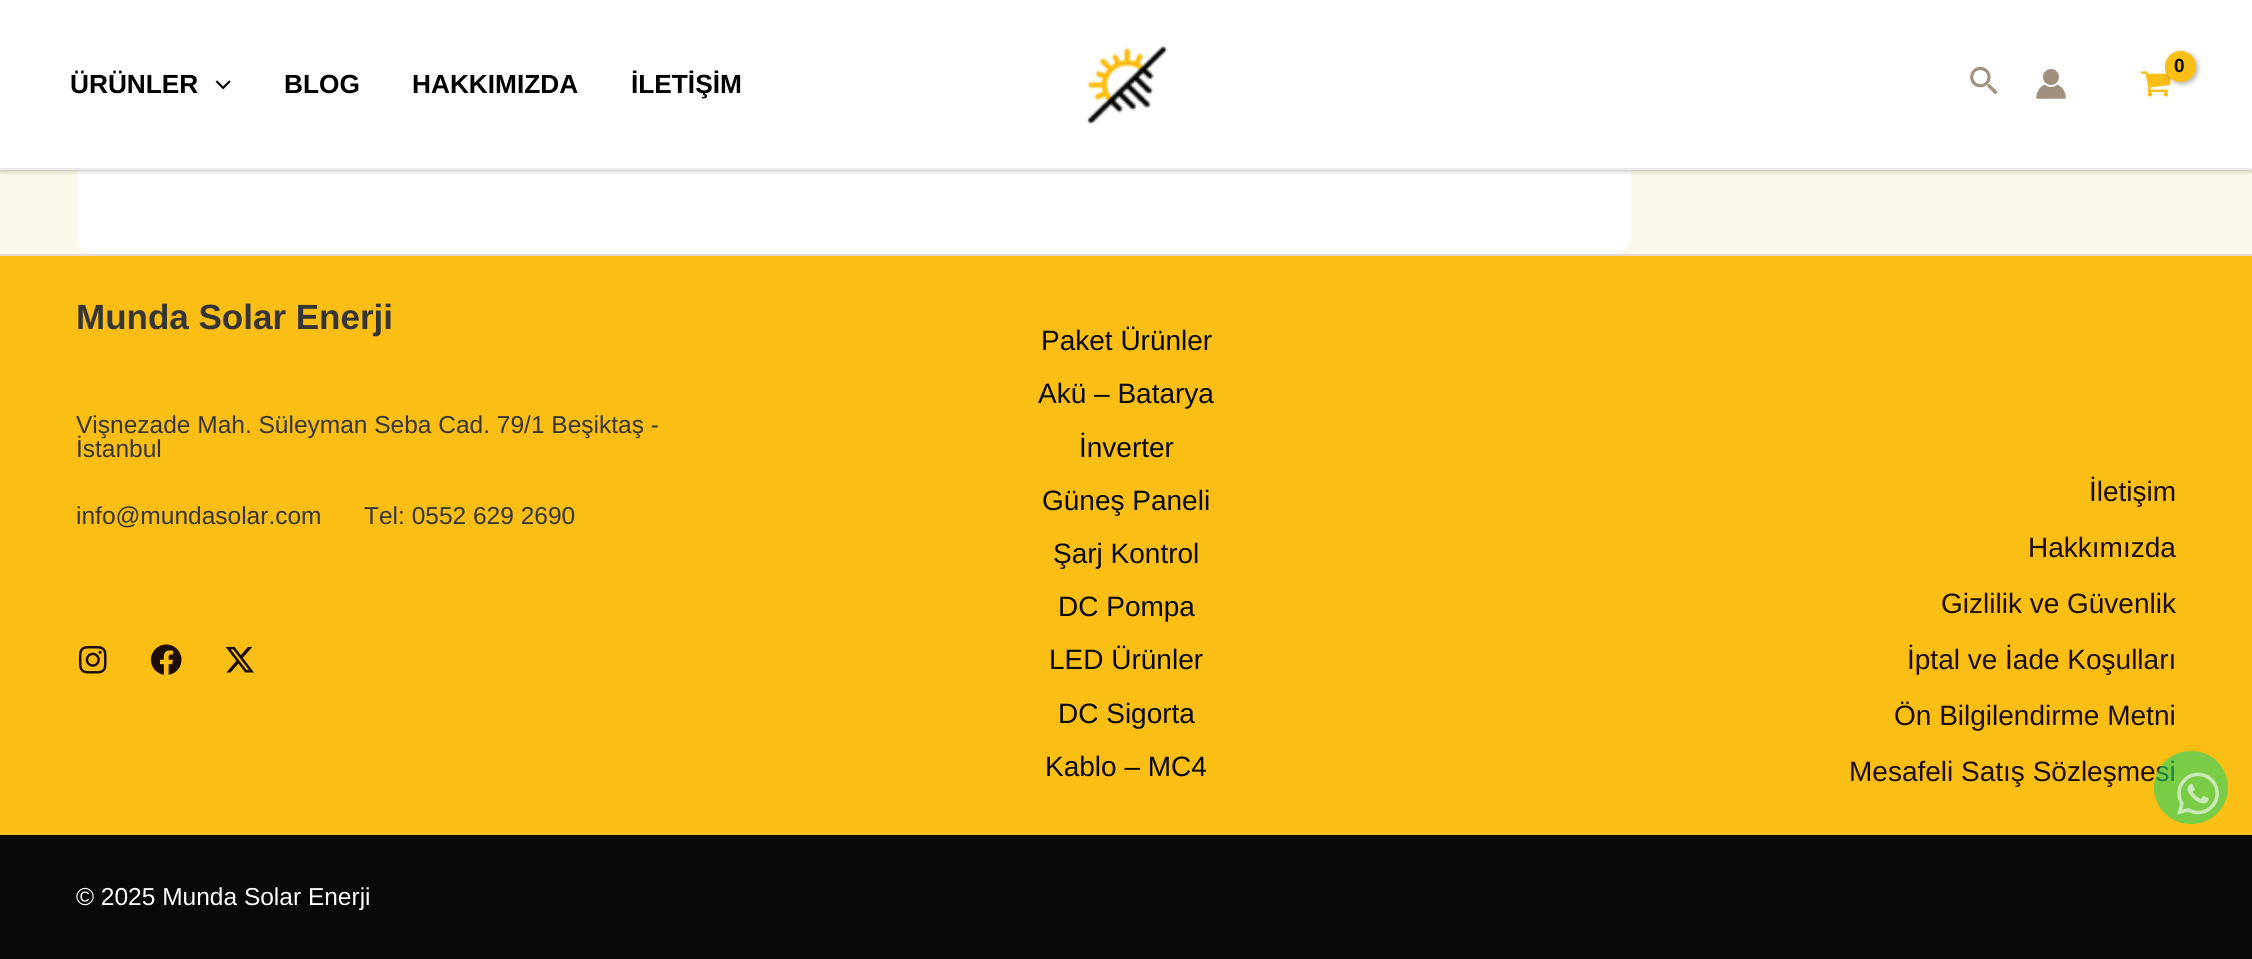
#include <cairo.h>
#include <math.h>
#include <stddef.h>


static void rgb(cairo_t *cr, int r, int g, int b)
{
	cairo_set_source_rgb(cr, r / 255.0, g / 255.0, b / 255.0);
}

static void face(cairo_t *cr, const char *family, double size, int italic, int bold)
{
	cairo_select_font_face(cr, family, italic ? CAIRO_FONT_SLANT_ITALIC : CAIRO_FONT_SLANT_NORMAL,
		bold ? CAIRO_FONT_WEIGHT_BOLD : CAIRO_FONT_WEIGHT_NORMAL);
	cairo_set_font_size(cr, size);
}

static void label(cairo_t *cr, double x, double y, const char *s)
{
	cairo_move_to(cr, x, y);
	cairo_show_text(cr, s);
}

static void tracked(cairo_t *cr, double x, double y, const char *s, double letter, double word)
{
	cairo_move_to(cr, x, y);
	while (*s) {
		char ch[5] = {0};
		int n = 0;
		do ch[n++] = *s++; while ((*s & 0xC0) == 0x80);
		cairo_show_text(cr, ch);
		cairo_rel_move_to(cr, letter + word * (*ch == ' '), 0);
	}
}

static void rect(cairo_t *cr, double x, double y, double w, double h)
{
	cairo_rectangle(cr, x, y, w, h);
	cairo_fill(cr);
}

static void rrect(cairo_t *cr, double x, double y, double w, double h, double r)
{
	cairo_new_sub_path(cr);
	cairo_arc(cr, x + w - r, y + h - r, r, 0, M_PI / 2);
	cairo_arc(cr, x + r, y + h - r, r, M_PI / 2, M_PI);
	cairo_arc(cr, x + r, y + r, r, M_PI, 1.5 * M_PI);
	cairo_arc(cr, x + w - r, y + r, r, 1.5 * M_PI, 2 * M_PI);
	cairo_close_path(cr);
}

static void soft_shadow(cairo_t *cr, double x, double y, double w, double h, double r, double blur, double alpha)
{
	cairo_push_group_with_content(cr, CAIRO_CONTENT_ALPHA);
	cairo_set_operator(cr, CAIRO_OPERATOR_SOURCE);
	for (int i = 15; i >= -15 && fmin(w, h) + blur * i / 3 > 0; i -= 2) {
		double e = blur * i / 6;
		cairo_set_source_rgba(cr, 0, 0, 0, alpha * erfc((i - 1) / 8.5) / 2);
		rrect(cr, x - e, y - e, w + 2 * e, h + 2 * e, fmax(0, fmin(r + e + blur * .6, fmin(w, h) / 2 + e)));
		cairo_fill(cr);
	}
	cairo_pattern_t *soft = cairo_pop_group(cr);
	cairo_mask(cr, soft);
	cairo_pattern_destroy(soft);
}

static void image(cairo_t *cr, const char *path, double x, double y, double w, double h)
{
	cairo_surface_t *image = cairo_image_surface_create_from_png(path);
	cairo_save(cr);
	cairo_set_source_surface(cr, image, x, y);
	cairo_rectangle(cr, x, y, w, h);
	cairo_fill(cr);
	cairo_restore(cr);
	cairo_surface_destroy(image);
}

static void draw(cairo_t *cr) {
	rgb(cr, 252, 249, 234);
	cairo_paint(cr);
	rgb(cr, 255, 255, 255);
	rrect(cr, 77, -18, 1554, 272, 18);
	cairo_fill(cr);
	rgb(cr, 0, 0, 0);
	soft_shadow(cr, 0, 2, 2252, 170, 0, 2, 0.2);
	rgb(cr, 255, 255, 255);
	rect(cr, 0, 0, 2252, 168);
	rgb(cr, 234, 234, 234);
	rect(cr, 0, 168, 2252, 2);
	image(cr, "image0.png", 1086, 45, 82, 80);
	image(cr, "image1.png", 2140, 71, 31, 26);
	rgb(cr, 0, 0, 0);
	soft_shadow(cr, 2167, 53, 31, 31, 15.5, 2.5, 0.3);
	rgb(cr, 250, 190, 20);
	cairo_arc(cr, 2180.5, 66.5, 15.5, 0, 2 * M_PI);
	cairo_fill(cr);
	face(cr, "Liberation Sans", 19, 0, 1);
	rgb(cr, 7, 8, 10);
	tracked(cr, 2174, 72, "0", -1, 0);
	image(cr, "image2.png", 1970, 67, 27, 28);
	image(cr, "image3.png", 2036, 69, 30, 30);
	face(cr, "Liberation Sans", 26.25, 0, 1);
	rgb(cr, 0, 0, 0);
	label(cr, 70, 93, "ÜRÜNLER");
	image(cr, "image4.png", 215, 80, 16, 10);
	label(cr, 284, 93, "BLOG");
	label(cr, 412, 93, "HAKKIMIZDA");
	label(cr, 631, 93, "İLETİŞİM");
	rgb(cr, 250, 190, 20);
	rect(cr, 0, 256, 2252, 579);
	rgb(cr, 229, 215, 209);
	rect(cr, 0, 254, 2252, 2);
	face(cr, "Liberation Sans", 35, 0, 1);
	rgb(cr, 53, 53, 53);
	label(cr, 76, 329, "Munda Solar Enerji");
	face(cr, "Liberation Sans", 24.5, 0, 0);
	label(cr, 76, 433, "Vişnezade Mah. Süleyman Seba Cad. 79/1 Beşiktaş -");
	label(cr, 76, 457, "İstanbul");
	label(cr, 76, 524, "info@mundasolar.com");
	label(cr, 364, 524, "Tel: 0552 629 2690");
	image(cr, "image5.png", 78, 645, 29, 29);
	image(cr, "image6.png", 151, 644, 31, 31);
	image(cr, "image7.png", 225, 646, 29, 27);
	face(cr, "Liberation Sans", 28, 0, 0);
	rgb(cr, 7, 8, 10);
	label(cr, 1041, 350, "Paket Ürünler");
	label(cr, 1038, 403, "Akü – Batarya");
	label(cr, 1079, 457, "İnverter");
	label(cr, 1042, 510, "Güneş Paneli");
	label(cr, 1053, 563, "Şarj Kontrol");
	label(cr, 1058, 616, "DC Pompa");
	label(cr, 1049, 669, "LED Ürünler");
	label(cr, 1058, 723, "DC Sigorta");
	label(cr, 1045, 776, "Kablo – MC4");
	rgb(cr, 28, 13, 10);
	label(cr, 2089, 501, "İletişim");
	label(cr, 2028, 557, "Hakkımızda");
	label(cr, 1941, 613, "Gizlilik ve Güvenlik");
	label(cr, 1907, 669, "İptal ve İade Koşulları");
	label(cr, 1894, 725, "Ön Bilgilendirme Metni");
	label(cr, 1849, 781, "Mesafeli Satış Sözleşmesi");
	rgb(cr, 7, 8, 10);
	rect(cr, 0, 835, 2252, 124);
	face(cr, "Liberation Sans", 24.5, 0, 0);
	rgb(cr, 255, 255, 255);
	label(cr, 76, 905, "© 2025 Munda Solar Enerji");
	cairo_set_source_rgba(cr, 0.145, 0.827, 0.4, 0.6);
	rrect(cr, 2154, 751, 74, 73, 36.5);
	cairo_fill(cr);
	image(cr, "image8.png", 2177, 772, 42, 43);
}

int main(void) {
	cairo_surface_t *surface = cairo_image_surface_create(CAIRO_FORMAT_RGB24, 2252, 959);
	cairo_t *cr = cairo_create(surface);
	cairo_font_options_t *options = cairo_font_options_create();
	cairo_font_options_set_hint_metrics(options, CAIRO_HINT_METRICS_OFF);
	cairo_font_options_set_hint_style(options, CAIRO_HINT_STYLE_NONE);
	cairo_set_font_options(cr, options);
	cairo_set_miter_limit(cr, 4);
	draw(cr);
	cairo_surface_write_to_png(surface, "render.png");
	cairo_font_options_destroy(options);
	cairo_destroy(cr);
	cairo_surface_destroy(surface);
	return 0;
}
